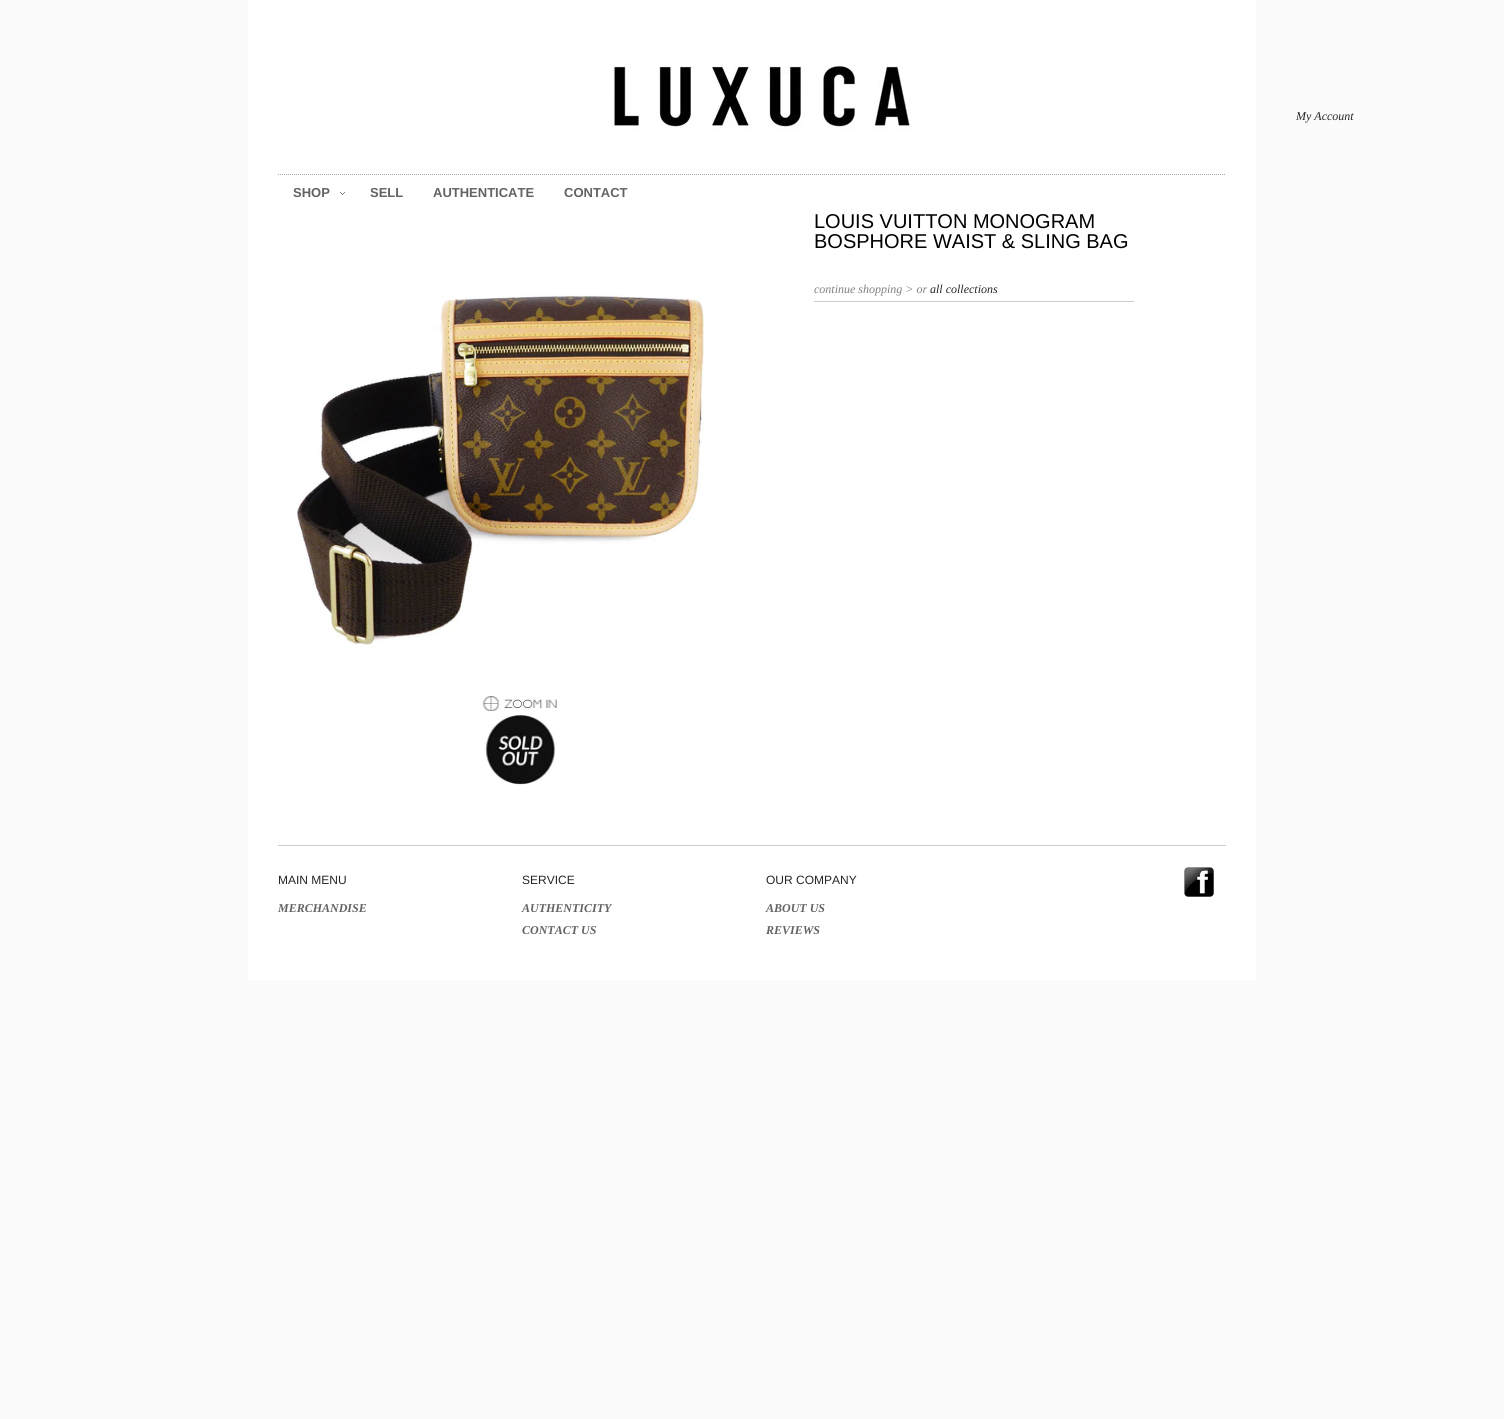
#include <cairo.h>
#include <math.h>
#include <stddef.h>


static void rgb(cairo_t *cr, int r, int g, int b)
{
	cairo_set_source_rgb(cr, r / 255.0, g / 255.0, b / 255.0);
}

static void face(cairo_t *cr, const char *family, double size, int italic, int bold)
{
	cairo_select_font_face(cr, family, italic ? CAIRO_FONT_SLANT_ITALIC : CAIRO_FONT_SLANT_NORMAL,
		bold ? CAIRO_FONT_WEIGHT_BOLD : CAIRO_FONT_WEIGHT_NORMAL);
	cairo_set_font_size(cr, size);
}

static void label(cairo_t *cr, double x, double y, const char *s)
{
	cairo_move_to(cr, x, y);
	cairo_show_text(cr, s);
}

static void rect(cairo_t *cr, double x, double y, double w, double h)
{
	cairo_rectangle(cr, x, y, w, h);
	cairo_fill(cr);
}

static void image(cairo_t *cr, const char *path, double x, double y, double w, double h)
{
	cairo_surface_t *image = cairo_image_surface_create_from_png(path);
	cairo_save(cr);
	cairo_set_source_surface(cr, image, x, y);
	cairo_rectangle(cr, x, y, w, h);
	cairo_fill(cr);
	cairo_restore(cr);
	cairo_surface_destroy(image);
}

static void draw(cairo_t *cr) {
	rgb(cr, 251, 251, 251);
	cairo_paint(cr);
	rgb(cr, 255, 255, 255);
	rect(cr, 248, 0, 1008, 980);
	image(cr, "image0.png", 611, 66, 300, 64);
	face(cr, "Liberation Serif", 12, 1, 0);
	rgb(cr, 37, 37, 37);
	label(cr, 1296, 120, "My Account");
	cairo_new_path(cr);
	cairo_move_to(cr, 278, 174.5);
	cairo_line_to(cr, 1226, 174.5);
	rgb(cr, 168, 168, 168);
	cairo_set_line_width(cr, 1);
	cairo_set_dash(cr, (double[]){1, 1}, 2, 0);
	cairo_stroke(cr);
	image(cr, "image1.png", 340, 192, 5, 3);
	face(cr, "Liberation Sans", 13, 0, 1);
	rgb(cr, 101, 98, 98);
	label(cr, 293, 197, "SHOP");
	label(cr, 370, 197, "SELL");
	label(cr, 433, 197, "AUTHENTICATE");
	label(cr, 564, 197, "CONTACT");
	face(cr, "Liberation Sans", 20, 0, 0);
	rgb(cr, 0, 0, 0);
	label(cr, 814, 228, "LOUIS VUITTON MONOGRAM");
	label(cr, 814, 248, "BOSPHORE WAIST & SLING BAG");
	face(cr, "Liberation Serif", 12, 1, 0);
	rgb(cr, 128, 128, 128);
	label(cr, 814, 293, "continue shopping > or");
	rgb(cr, 37, 37, 37);
	label(cr, 930, 293, "all collections");
	rgb(cr, 204, 204, 204);
	rect(cr, 814, 301, 320, 1);
	image(cr, "image2.png", 297, 294, 407, 351);
	image(cr, "image3.png", 481, 695, 76, 16);
	image(cr, "image4.png", 485, 712, 70, 74);
	rect(cr, 278, 845, 948, 1);
	face(cr, "Liberation Sans", 12, 0, 0);
	rgb(cr, 37, 37, 37);
	label(cr, 278, 884, "MAIN MENU");
	face(cr, "Liberation Serif", 12, 1, 1);
	rgb(cr, 101, 98, 98);
	label(cr, 278, 912, "MERCHANDISE");
	face(cr, "Liberation Sans", 12, 0, 0);
	rgb(cr, 37, 37, 37);
	label(cr, 522, 884, "SERVICE");
	face(cr, "Liberation Serif", 12, 1, 1);
	rgb(cr, 101, 98, 98);
	label(cr, 522, 912, "AUTHENTICITY");
	label(cr, 522, 934, "CONTACT US");
	face(cr, "Liberation Sans", 12, 0, 0);
	rgb(cr, 37, 37, 37);
	label(cr, 766, 884, "OUR COMPANY");
	face(cr, "Liberation Serif", 12, 1, 1);
	rgb(cr, 101, 98, 98);
	label(cr, 766, 912, "ABOUT US");
	label(cr, 766, 934, "REVIEWS");
	image(cr, "image5.png", 1184, 867, 30, 30);
}

int main(void) {
	cairo_surface_t *surface = cairo_image_surface_create(CAIRO_FORMAT_RGB24, 1504, 1419);
	cairo_t *cr = cairo_create(surface);
	cairo_font_options_t *options = cairo_font_options_create();
	cairo_font_options_set_hint_metrics(options, CAIRO_HINT_METRICS_OFF);
	cairo_font_options_set_hint_style(options, CAIRO_HINT_STYLE_NONE);
	cairo_set_font_options(cr, options);
	cairo_set_miter_limit(cr, 4);
	draw(cr);
	cairo_surface_write_to_png(surface, "render.png");
	cairo_font_options_destroy(options);
	cairo_destroy(cr);
	cairo_surface_destroy(surface);
	return 0;
}
